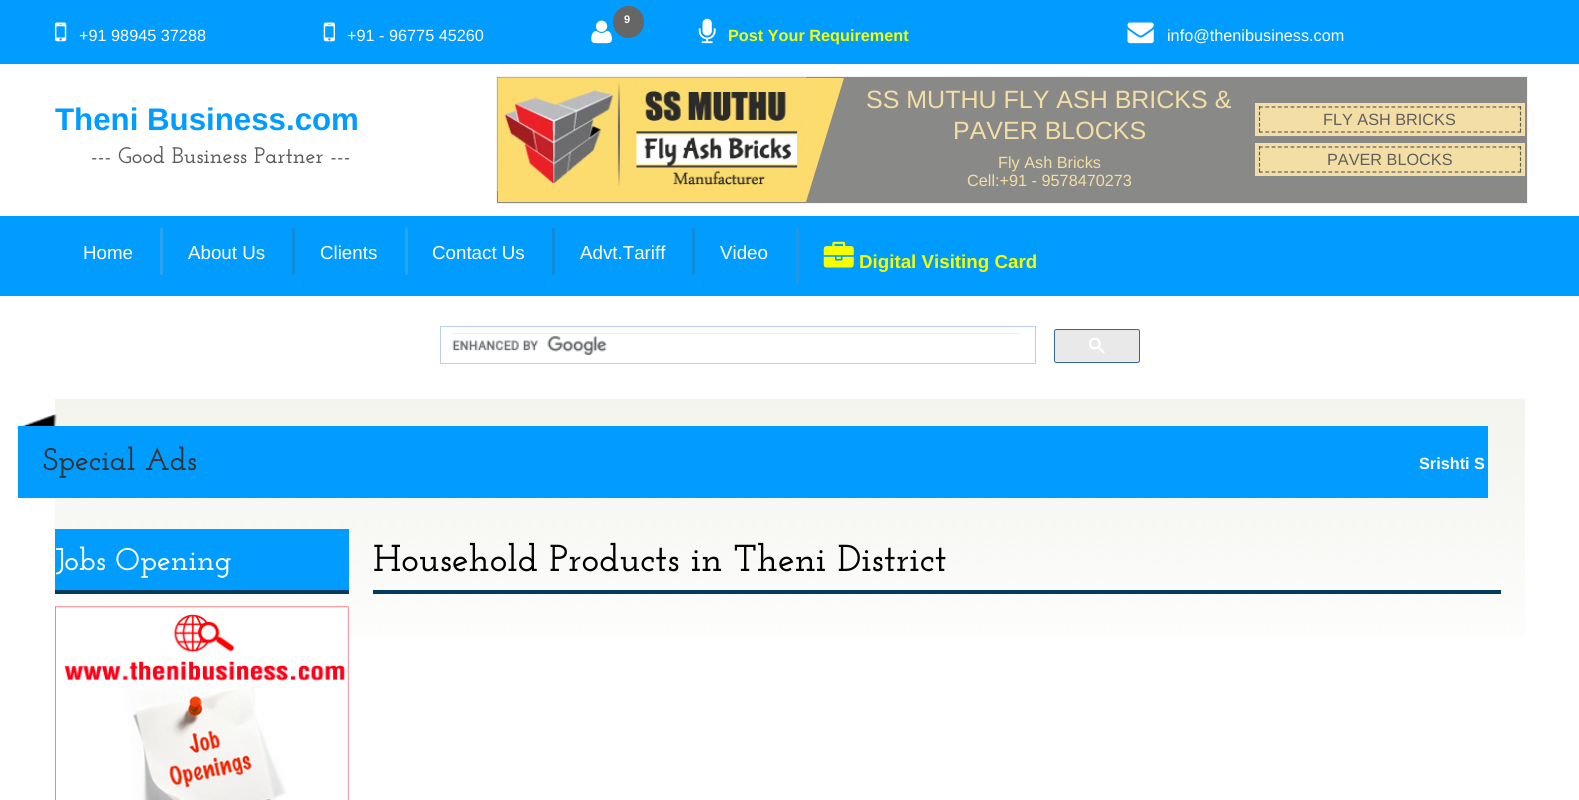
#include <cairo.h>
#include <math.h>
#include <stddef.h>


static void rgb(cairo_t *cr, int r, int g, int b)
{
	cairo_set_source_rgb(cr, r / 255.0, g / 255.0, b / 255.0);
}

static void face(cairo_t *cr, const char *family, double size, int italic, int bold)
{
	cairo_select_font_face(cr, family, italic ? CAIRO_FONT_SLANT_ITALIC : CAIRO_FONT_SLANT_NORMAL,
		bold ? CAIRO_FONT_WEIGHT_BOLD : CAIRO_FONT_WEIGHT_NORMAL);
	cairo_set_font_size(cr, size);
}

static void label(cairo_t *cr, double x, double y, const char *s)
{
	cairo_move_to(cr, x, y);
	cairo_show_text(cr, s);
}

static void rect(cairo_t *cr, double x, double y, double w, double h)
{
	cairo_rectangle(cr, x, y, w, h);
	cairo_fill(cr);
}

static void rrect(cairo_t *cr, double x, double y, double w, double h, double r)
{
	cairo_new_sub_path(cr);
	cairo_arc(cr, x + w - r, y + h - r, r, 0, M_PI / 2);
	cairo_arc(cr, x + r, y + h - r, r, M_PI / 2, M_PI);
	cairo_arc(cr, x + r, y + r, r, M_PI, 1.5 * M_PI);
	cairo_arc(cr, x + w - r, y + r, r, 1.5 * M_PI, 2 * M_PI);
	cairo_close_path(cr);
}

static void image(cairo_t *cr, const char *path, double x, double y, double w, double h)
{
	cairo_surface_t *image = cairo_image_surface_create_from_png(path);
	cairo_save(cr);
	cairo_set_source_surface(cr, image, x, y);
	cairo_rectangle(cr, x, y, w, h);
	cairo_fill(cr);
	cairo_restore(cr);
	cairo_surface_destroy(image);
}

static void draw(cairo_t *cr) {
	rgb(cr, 255, 255, 255);
	cairo_paint(cr);
	rgb(cr, 0, 156, 255);
	rect(cr, 0, 0, 1579, 64);
	image(cr, "image0.png", 591, 20, 21, 24);
	rgb(cr, 102, 102, 102);
	rrect(cr, 613, 6, 31, 32, 15.5);
	cairo_fill(cr);
	face(cr, "Liberation Sans", 11, 0, 1);
	rgb(cr, 255, 255, 255);
	label(cr, 624, 23, "9");
	image(cr, "image1.png", 55, 22, 12, 20);
	face(cr, "Liberation Sans", 16.25, 0, 0);
	label(cr, 79, 41, "+91 98945 37288");
	image(cr, "image2.png", 323, 22, 12, 20);
	label(cr, 347, 41, "+91 - 96775 45260");
	image(cr, "image3.png", 698, 18, 18, 26);
	face(cr, "Liberation Sans", 16.25, 0, 1);
	rgb(cr, 246, 255, 0);
	label(cr, 728, 41, "Post Your Requirement");
	image(cr, "image4.png", 1127, 22, 27, 22);
	face(cr, "Liberation Sans", 16.25, 0, 0);
	rgb(cr, 255, 255, 255);
	label(cr, 1167, 41, "info@thenibusiness.com");
	face(cr, "Liberation Sans", 31.25, 0, 1);
	rgb(cr, 0, 156, 255);
	label(cr, 55, 130, "Theni Business.com");
	face(cr, "Josefin Slab SemiBold", 22.5, 0, 0);
	rgb(cr, 89, 91, 92);
	label(cr, 91, 163, "--- Good Business Partner ---");
	rgb(cr, 137, 137, 135);
	cairo_rectangle(cr, 496.5, 76.5, 1031, 127);
	cairo_fill_preserve(cr);
	rgb(cr, 241, 243, 238);
	cairo_set_line_width(cr, 1);
	cairo_stroke(cr);
	rgb(cr, 252, 220, 109);
	cairo_new_path(cr);
	cairo_move_to(cr, 498, 78);
	cairo_line_to(cr, 844, 78);
	cairo_line_to(cr, 806, 202);
	cairo_line_to(cr, 498, 202);
	cairo_close_path(cr);
	cairo_fill(cr);
	image(cr, "image5.png", 497, 77, 310, 115);
	face(cr, "Liberation Sans", 25, 0, 0);
	rgb(cr, 243, 222, 165);
	label(cr, 866, 108, "SS MUTHU FLY ASH BRICKS &");
	label(cr, 953, 139, "PAVER BLOCKS");
	face(cr, "Liberation Sans", 16.25, 0, 0);
	label(cr, 998, 168, "Fly Ash Bricks");
	label(cr, 967, 186, "Cell:+91 - 9578470273");
	rect(cr, 1255, 103, 270, 33);
	cairo_new_path(cr);
	cairo_move_to(cr, 1259, 107);
	cairo_line_to(cr, 1521, 107);
	rgb(cr, 95, 95, 94);
	cairo_set_line_width(cr, 1.2);
	cairo_set_dash(cr, (double[]){3.75, 2.56}, 2, 0);
	cairo_stroke(cr);
	cairo_new_path(cr);
	cairo_move_to(cr, 1520.5, 106);
	cairo_line_to(cr, 1520.5, 132.5);
	cairo_set_dash(cr, (double[]){3.75, 1.88}, 2, 0);
	cairo_stroke(cr);
	cairo_new_path(cr);
	cairo_move_to(cr, 1259, 132);
	cairo_line_to(cr, 1521, 132);
	cairo_set_dash(cr, (double[]){3.75, 2.56}, 2, 0);
	cairo_stroke(cr);
	cairo_new_path(cr);
	cairo_move_to(cr, 1259.5, 106);
	cairo_line_to(cr, 1259.5, 132.5);
	cairo_set_dash(cr, (double[]){3.75, 1.88}, 2, 0);
	cairo_stroke(cr);
	label(cr, 1323, 125, "FLY ASH BRICKS");
	rgb(cr, 243, 222, 165);
	rect(cr, 1255, 143, 270, 33);
	cairo_new_path(cr);
	cairo_move_to(cr, 1259, 147);
	cairo_line_to(cr, 1521, 147);
	rgb(cr, 95, 95, 94);
	cairo_set_dash(cr, (double[]){3.75, 2.56}, 2, 0);
	cairo_stroke(cr);
	cairo_new_path(cr);
	cairo_move_to(cr, 1520.5, 146);
	cairo_line_to(cr, 1520.5, 172.5);
	cairo_set_dash(cr, (double[]){3.75, 1.88}, 2, 0);
	cairo_stroke(cr);
	cairo_new_path(cr);
	cairo_move_to(cr, 1259, 172);
	cairo_line_to(cr, 1521, 172);
	cairo_set_dash(cr, (double[]){3.75, 2.56}, 2, 0);
	cairo_stroke(cr);
	cairo_new_path(cr);
	cairo_move_to(cr, 1259.5, 146);
	cairo_line_to(cr, 1259.5, 172.5);
	cairo_set_dash(cr, (double[]){3.75, 1.88}, 2, 0);
	cairo_stroke(cr);
	label(cr, 1327, 165, "PAVER BLOCKS");
	rgb(cr, 0, 156, 255);
	rect(cr, 0, 216, 1579, 80);
	face(cr, "Liberation Sans", 18.75, 0, 0);
	rgb(cr, 255, 255, 255);
	label(cr, 83, 259, "Home");
	rgb(cr, 42, 163, 239);
	rect(cr, 160, 228, 3, 47);
	rgb(cr, 255, 255, 255);
	label(cr, 188, 259, "About Us");
	rgb(cr, 17, 140, 218);
	rect(cr, 292, 228, 3, 47);
	rgb(cr, 255, 255, 255);
	label(cr, 320, 259, "Clients");
	rgb(cr, 42, 163, 239);
	rect(cr, 405, 228, 3, 47);
	rgb(cr, 255, 255, 255);
	label(cr, 432, 259, "Contact Us");
	rgb(cr, 17, 140, 218);
	rect(cr, 552, 228, 3, 47);
	rgb(cr, 255, 255, 255);
	label(cr, 580, 259, "Advt.Tariff");
	rgb(cr, 17, 140, 218);
	rect(cr, 692, 228, 3, 47);
	rgb(cr, 255, 255, 255);
	label(cr, 720, 259, "Video");
	rgb(cr, 31, 153, 230);
	rect(cr, 796, 228, 3, 56);
	image(cr, "image6.png", 823, 241, 31, 27);
	face(cr, "Liberation Sans", 18.75, 0, 1);
	rgb(cr, 246, 255, 0);
	label(cr, 859, 268, "Digital Visiting Card");
	cairo_rectangle(cr, 440.5, 326.5, 595, 37);
	rgb(cr, 188, 205, 240);
	cairo_set_line_width(cr, 1);
	cairo_set_dash(cr, NULL, 0, 0);
	cairo_stroke(cr);
	image(cr, "image7.png", 452, 336, 155, 19);
	rgb(cr, 236, 236, 236);
	rect(cr, 453, 333, 566, 1);
	rgb(cr, 233, 233, 233);
	rrect(cr, 1054.5, 329.5, 85, 33, 2);
	cairo_fill_preserve(cr);
	rgb(cr, 51, 102, 153);
	cairo_stroke(cr);
	image(cr, "image8.png", 1089, 338, 16, 16);
	image(cr, "image9.png", 55, 398, 1470, 237);
	image(cr, "image10.png", 17, 414, 40, 15);
	rgb(cr, 0, 156, 255);
	rect(cr, 18, 426, 1470, 72);
	face(cr, "Josefin Slab SemiBold", 31.25, 0, 0);
	rgb(cr, 51, 51, 51);
	label(cr, 43, 470, "Special Ads");
	face(cr, "Liberation Sans", 16.25, 0, 1);
	rgb(cr, 255, 255, 255);
	label(cr, 1419, 469, "Srishti S");
	rgb(cr, 0, 156, 255);
	rect(cr, 55, 529, 294, 61);
	rgb(cr, 3, 60, 96);
	rect(cr, 55, 590, 294, 4);
	face(cr, "Josefin Slab SemiBold", 31.25, 0, 0);
	rgb(cr, 255, 255, 255);
	label(cr, 55, 570, "Jobs Opening");
	image(cr, "image11.png", 55, 606, 294, 194);
	rgb(cr, 3, 60, 96);
	rect(cr, 373, 590, 1128, 4);
	face(cr, "Josefin Slab SemiBold", 37.5, 0, 0);
	rgb(cr, 0, 0, 0);
	label(cr, 373, 571, "Household Products in Theni District");
}

int main(void) {
	cairo_surface_t *surface = cairo_image_surface_create(CAIRO_FORMAT_RGB24, 1579, 800);
	cairo_t *cr = cairo_create(surface);
	cairo_font_options_t *options = cairo_font_options_create();
	cairo_font_options_set_hint_metrics(options, CAIRO_HINT_METRICS_OFF);
	cairo_font_options_set_hint_style(options, CAIRO_HINT_STYLE_NONE);
	cairo_set_font_options(cr, options);
	cairo_set_miter_limit(cr, 4);
	draw(cr);
	cairo_surface_write_to_png(surface, "render.png");
	cairo_font_options_destroy(options);
	cairo_destroy(cr);
	cairo_surface_destroy(surface);
	return 0;
}
